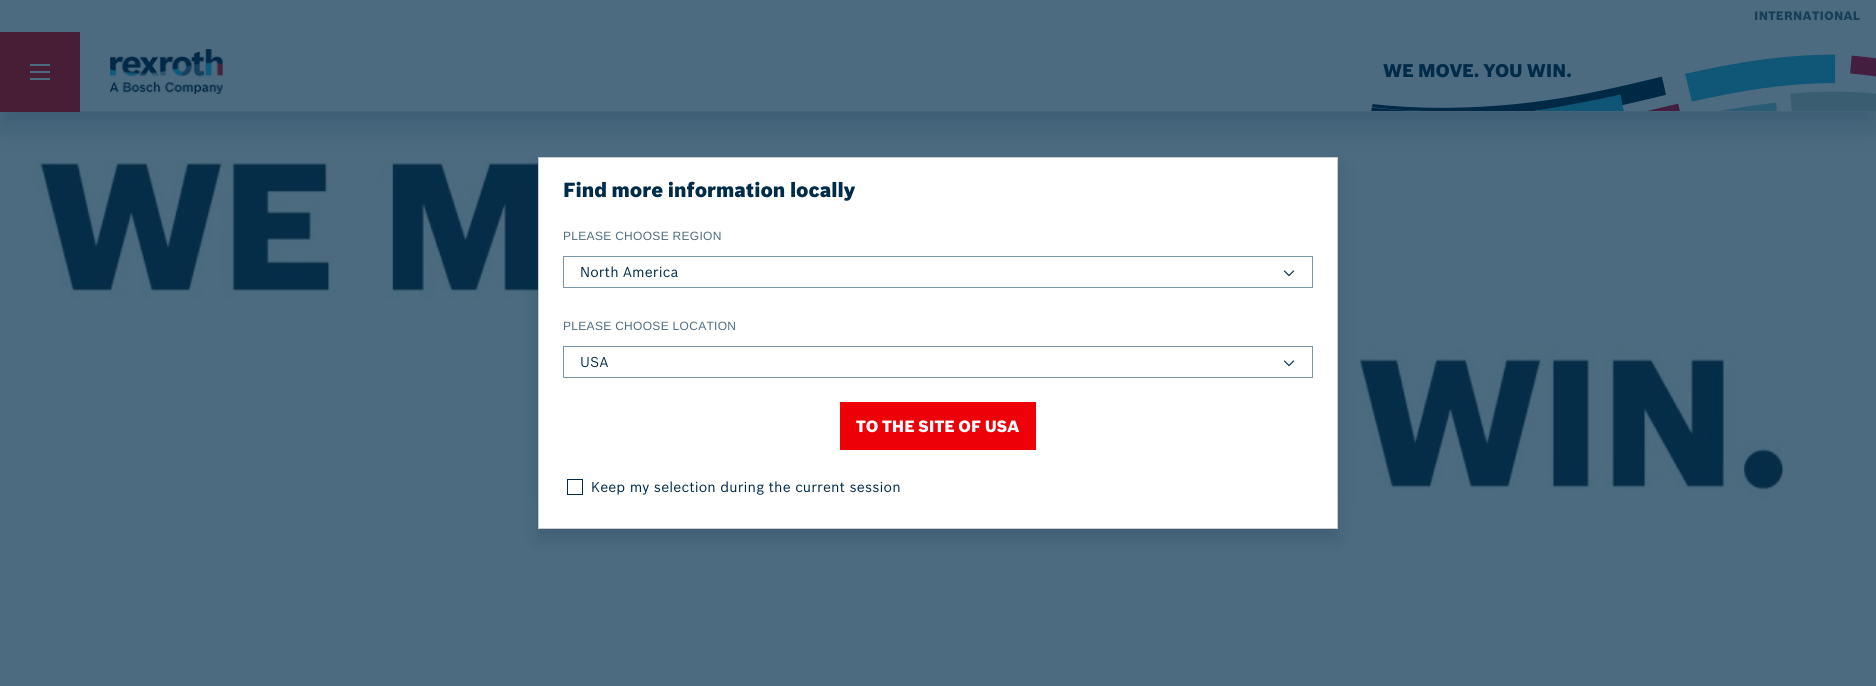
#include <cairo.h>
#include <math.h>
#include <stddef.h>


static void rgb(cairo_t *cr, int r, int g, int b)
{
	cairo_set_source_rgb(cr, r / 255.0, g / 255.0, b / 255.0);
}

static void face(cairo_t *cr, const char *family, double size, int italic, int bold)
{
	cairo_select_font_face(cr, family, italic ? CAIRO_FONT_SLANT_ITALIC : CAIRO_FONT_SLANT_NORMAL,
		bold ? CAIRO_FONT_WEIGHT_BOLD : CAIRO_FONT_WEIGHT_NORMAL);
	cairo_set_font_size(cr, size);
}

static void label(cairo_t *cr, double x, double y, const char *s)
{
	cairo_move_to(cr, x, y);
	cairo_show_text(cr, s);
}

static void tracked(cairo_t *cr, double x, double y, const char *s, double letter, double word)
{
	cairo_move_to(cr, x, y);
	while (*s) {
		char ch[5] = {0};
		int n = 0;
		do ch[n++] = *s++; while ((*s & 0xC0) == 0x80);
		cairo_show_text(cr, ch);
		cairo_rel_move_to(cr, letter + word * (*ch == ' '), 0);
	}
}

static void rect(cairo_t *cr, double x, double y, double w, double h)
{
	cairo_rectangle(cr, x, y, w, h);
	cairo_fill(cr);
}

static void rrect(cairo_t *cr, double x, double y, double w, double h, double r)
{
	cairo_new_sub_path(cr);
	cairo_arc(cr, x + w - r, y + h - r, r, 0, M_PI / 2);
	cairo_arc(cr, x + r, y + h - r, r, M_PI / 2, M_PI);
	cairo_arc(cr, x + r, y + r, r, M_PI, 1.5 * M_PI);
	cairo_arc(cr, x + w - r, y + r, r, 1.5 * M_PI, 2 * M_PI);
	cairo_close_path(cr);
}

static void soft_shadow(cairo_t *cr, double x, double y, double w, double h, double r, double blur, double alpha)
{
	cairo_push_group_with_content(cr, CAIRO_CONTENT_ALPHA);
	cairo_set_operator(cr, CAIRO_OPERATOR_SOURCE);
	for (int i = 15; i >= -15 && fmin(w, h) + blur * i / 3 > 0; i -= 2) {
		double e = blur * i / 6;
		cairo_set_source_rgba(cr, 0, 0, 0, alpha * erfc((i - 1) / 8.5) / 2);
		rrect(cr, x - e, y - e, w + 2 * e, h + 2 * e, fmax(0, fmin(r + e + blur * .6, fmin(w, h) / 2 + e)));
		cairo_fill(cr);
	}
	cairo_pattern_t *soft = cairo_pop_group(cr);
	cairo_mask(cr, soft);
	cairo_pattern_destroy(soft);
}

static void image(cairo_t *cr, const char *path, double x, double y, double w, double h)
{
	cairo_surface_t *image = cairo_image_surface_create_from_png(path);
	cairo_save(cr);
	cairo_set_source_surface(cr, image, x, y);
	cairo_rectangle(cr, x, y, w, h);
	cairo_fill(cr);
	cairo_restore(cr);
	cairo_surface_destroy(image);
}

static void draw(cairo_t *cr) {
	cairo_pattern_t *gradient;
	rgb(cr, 77, 107, 128);
	cairo_paint(cr);
	image(cr, "image2.png", 33, 159, 1752, 343);
	cairo_save(cr);
	cairo_rectangle(cr, 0, 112, 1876, 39);
	cairo_clip(cr);
	rgb(cr, 27, 67, 95);
	soft_shadow(cr, 0, 15, 1876, 112, 0, 15, 0.35);
	cairo_restore(cr);
	face(cr, "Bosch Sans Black", 12, 0, 0);
	rgb(cr, 24, 63, 90);
	tracked(cr, 1754, 20, "INTERNATIONAL", 0.3, 0);
	rgb(cr, 69, 99, 120);
	rect(cr, 80, 111, 1796, 1);
	rgb(cr, 71, 30, 53);
	rect(cr, 0, 32, 80, 80);
	rgb(cr, 77, 107, 128);
	rect(cr, 30, 64, 20, 2);
	rect(cr, 30, 71, 20, 2);
	rect(cr, 30, 78, 20, 2);
	image(cr, "image0.png", 110, 49, 113, 45);
	image(cr, "image1.png", 1371, 54, 505, 57);
	face(cr, "Bosch Sans Black", 18, 0, 0);
	rgb(cr, 0, 43, 73);
	label(cr, 1383, 77, "WE MOVE. YOU WIN.");
	rgb(cr, 0, 43, 73);
	soft_shadow(cr, 538, 167, 800, 372, 0, 10, 0.2);
	rgb(cr, 255, 255, 255);
	cairo_rectangle(cr, 538.5, 157.5, 799, 371);
	cairo_fill_preserve(cr);
	rgb(cr, 204, 204, 204);
	cairo_set_line_width(cr, 1);
	cairo_stroke(cr);
	face(cr, "Bosch Sans Black", 20, 0, 0);
	rgb(cr, 0, 43, 73);
	label(cr, 563, 197, "Find more information locally");
	face(cr, "Liberation Sans", 12, 0, 0);
	rgb(cr, 80, 110, 129);
	tracked(cr, 563, 240, "PLEASE CHOOSE REGION", 0.3, 0);
	gradient = cairo_pattern_create_linear(538, 192, 543, 320);
	cairo_pattern_add_color_stop_rgba(gradient, 0, 0.11, 0.153, 0.18, 1);
	cairo_pattern_add_color_stop_rgba(gradient, 0.5, 0.11, 0.153, 0.18, 1);
	cairo_pattern_add_color_stop_rgba(gradient, 0.5, 0.475, 0.584, 0.651, 1);
	cairo_pattern_add_color_stop_rgba(gradient, 1, 0.475, 0.584, 0.651, 1);
	cairo_set_source(cr, gradient);
	cairo_pattern_destroy(gradient);
	rect(cr, 563, 256, 750, 32);
	rgb(cr, 255, 255, 255);
	rect(cr, 564, 257, 748, 30);
	face(cr, "Bosch Sans", 14, 0, 0);
	rgb(cr, 0, 43, 73);
	tracked(cr, 580, 277, "North America", 0.15, 0);
	image(cr, "image3.png", 1283, 270, 12, 7);
	face(cr, "Liberation Sans", 12, 0, 0);
	rgb(cr, 80, 110, 129);
	tracked(cr, 563, 330, "PLEASE CHOOSE LOCATION", 0.3, 0);
	gradient = cairo_pattern_create_linear(538, 282, 543, 410);
	cairo_pattern_add_color_stop_rgba(gradient, 0, 0.11, 0.153, 0.18, 1);
	cairo_pattern_add_color_stop_rgba(gradient, 0.5, 0.11, 0.153, 0.18, 1);
	cairo_pattern_add_color_stop_rgba(gradient, 0.5, 0.475, 0.584, 0.651, 1);
	cairo_pattern_add_color_stop_rgba(gradient, 1, 0.475, 0.584, 0.651, 1);
	cairo_set_source(cr, gradient);
	cairo_pattern_destroy(gradient);
	rect(cr, 563, 346, 750, 32);
	rgb(cr, 255, 255, 255);
	rect(cr, 564, 347, 748, 30);
	face(cr, "Bosch Sans", 14, 0, 0);
	rgb(cr, 0, 43, 73);
	tracked(cr, 580, 367, "USA", 0.15, 0);
	image(cr, "image3.png", 1283, 360, 12, 7);
	gradient = cairo_pattern_create_linear(748, 470, 736, 286);
	cairo_pattern_add_color_stop_rgba(gradient, 0.33, 0.929, 0, 0.027, 1);
	cairo_pattern_add_color_stop_rgba(gradient, 0.34, 0.835, 0, 0.02, 1);
	cairo_pattern_add_color_stop_rgba(gradient, 0.66, 0.835, 0, 0.02, 1);
	cairo_pattern_add_color_stop_rgba(gradient, 0.67, 0.929, 0, 0.027, 1);
	cairo_set_source(cr, gradient);
	cairo_pattern_destroy(gradient);
	rect(cr, 840, 402, 196, 48);
	face(cr, "Bosch Sans Black", 16, 0, 0);
	rgb(cr, 255, 255, 255);
	label(cr, 856, 432, "TO THE SITE OF USA");
	cairo_rectangle(cr, 567.5, 479.5, 15, 15);
	rgb(cr, 0, 43, 73);
	cairo_stroke(cr);
	face(cr, "Bosch Sans", 14, 0, 0);
	tracked(cr, 591, 492, "Keep my selection during the current session", 0.15, 0);
}

int main(void) {
	cairo_surface_t *surface = cairo_image_surface_create(CAIRO_FORMAT_RGB24, 1876, 686);
	cairo_t *cr = cairo_create(surface);
	cairo_font_options_t *options = cairo_font_options_create();
	cairo_font_options_set_hint_metrics(options, CAIRO_HINT_METRICS_OFF);
	cairo_font_options_set_hint_style(options, CAIRO_HINT_STYLE_NONE);
	cairo_set_font_options(cr, options);
	cairo_set_miter_limit(cr, 4);
	draw(cr);
	cairo_surface_write_to_png(surface, "render.png");
	cairo_font_options_destroy(options);
	cairo_destroy(cr);
	cairo_surface_destroy(surface);
	return 0;
}
